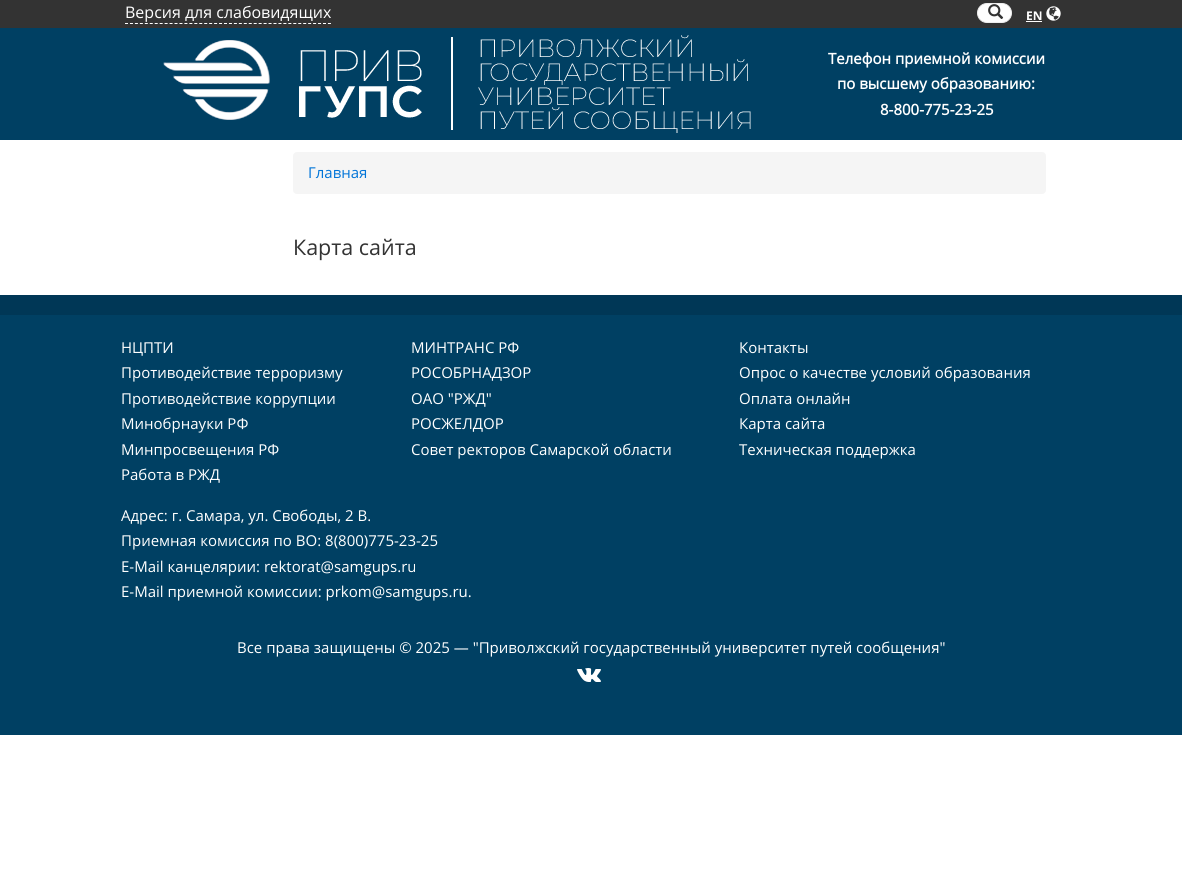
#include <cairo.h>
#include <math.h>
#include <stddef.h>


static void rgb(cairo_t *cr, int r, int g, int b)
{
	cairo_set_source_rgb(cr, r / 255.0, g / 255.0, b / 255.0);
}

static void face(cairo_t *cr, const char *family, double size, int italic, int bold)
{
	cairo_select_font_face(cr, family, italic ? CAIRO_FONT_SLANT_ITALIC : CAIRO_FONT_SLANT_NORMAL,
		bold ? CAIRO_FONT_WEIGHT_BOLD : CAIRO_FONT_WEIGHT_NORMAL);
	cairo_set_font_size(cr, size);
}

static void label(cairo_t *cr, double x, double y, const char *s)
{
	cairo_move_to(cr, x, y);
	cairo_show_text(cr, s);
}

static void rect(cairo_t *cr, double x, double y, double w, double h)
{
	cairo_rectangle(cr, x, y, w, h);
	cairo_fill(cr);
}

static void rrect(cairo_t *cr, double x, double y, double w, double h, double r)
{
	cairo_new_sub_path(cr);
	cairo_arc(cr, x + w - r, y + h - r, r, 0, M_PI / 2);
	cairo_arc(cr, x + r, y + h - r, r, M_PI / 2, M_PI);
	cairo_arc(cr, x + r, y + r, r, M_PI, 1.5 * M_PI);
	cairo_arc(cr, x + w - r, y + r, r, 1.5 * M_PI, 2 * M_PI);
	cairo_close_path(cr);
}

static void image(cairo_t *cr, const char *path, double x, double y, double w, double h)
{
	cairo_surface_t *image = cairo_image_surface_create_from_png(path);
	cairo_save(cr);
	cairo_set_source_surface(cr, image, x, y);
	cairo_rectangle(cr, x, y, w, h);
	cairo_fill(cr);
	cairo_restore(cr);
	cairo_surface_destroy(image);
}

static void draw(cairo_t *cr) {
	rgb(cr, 255, 255, 255);
	cairo_paint(cr);
	rgb(cr, 51, 51, 51);
	rect(cr, 0, 0, 1182, 28);
	face(cr, "Open Sans", 16, 0, 0);
	rgb(cr, 255, 255, 255);
	label(cr, 125, 18, "Версия для слабовидящих");
	cairo_new_path(cr);
	cairo_move_to(cr, 125, 23.5);
	cairo_line_to(cr, 331, 23.5);
	cairo_set_line_width(cr, 1);
	cairo_set_dash(cr, (double[]){3, 1.95}, 2, 0);
	cairo_stroke(cr);
	rrect(cr, 977.5, 3.5, 34, 19, 9.5);
	cairo_fill_preserve(cr);
	rgb(cr, 238, 238, 238);
	cairo_set_dash(cr, NULL, 0, 0);
	cairo_stroke(cr);
	image(cr, "image0.png", 988, 4, 16, 15);
	face(cr, "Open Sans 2", 12, 0, 1);
	rgb(cr, 255, 255, 255);
	label(cr, 1026, 20, "EN");
	rect(cr, 1026, 21, 16, 1);
	image(cr, "image1.png", 1046, 6, 15, 15);
	rgb(cr, 0, 64, 99);
	rect(cr, 0, 28, 1182, 112);
	image(cr, "image2.png", 163, 35, 588, 98);
	face(cr, "Open Sans", 15, 0, 1);
	rgb(cr, 255, 255, 255);
	label(cr, 828, 64, "Телефон приемной комиссии");
	label(cr, 837, 89, "по высшему образованию:");
	label(cr, 880, 115, "8-800-775-23-25");
	rgb(cr, 245, 245, 245);
	rrect(cr, 293, 152, 753, 42, 4);
	cairo_fill(cr);
	face(cr, "Open Sans", 15, 0, 0);
	rgb(cr, 2, 117, 216);
	label(cr, 308, 178, "Главная");
	face(cr, "Open Sans", 21.5, 0, 0);
	rgb(cr, 51, 51, 51);
	label(cr, 293, 255, "Карта сайта");
	rgb(cr, 0, 64, 99);
	rect(cr, 0, 315, 1182, 420);
	rgb(cr, 0, 55, 86);
	rect(cr, 0, 295, 1182, 20);
	face(cr, "Open Sans", 15, 0, 0);
	rgb(cr, 255, 255, 255);
	label(cr, 121, 353, "НЦПТИ");
	label(cr, 121, 378, "Противодействие терроризму");
	label(cr, 121, 404, "Противодействие коррупции");
	label(cr, 121, 429, "Минобрнауки РФ");
	label(cr, 121, 455, "Минпросвещения РФ");
	label(cr, 121, 480, "Работа в РЖД");
	label(cr, 411, 353, "МИНТРАНС РФ");
	label(cr, 411, 378, "РОСОБРНАДЗОР");
	label(cr, 411, 404, "ОАО \"РЖД\"");
	label(cr, 411, 429, "РОСЖЕЛДОР");
	label(cr, 411, 455, "Совет ректоров Самарской области");
	label(cr, 739, 353, "Контакты");
	label(cr, 739, 378, "Опрос о качестве условий образования");
	label(cr, 739, 404, "Оплата онлайн");
	label(cr, 739, 429, "Карта сайта");
	label(cr, 739, 455, "Техническая поддержка");
	label(cr, 121, 521, "Адрес: г. Самара, ул. Свободы, 2 В.");
	label(cr, 121, 546, "Приемная комиссия по ВО: 8(800)775-23-25");
	label(cr, 121, 572, "E-Mail канцелярии: rektorat@samgups.ru");
	label(cr, 121, 597, "E-Mail приемной комиссии: prkom@samgups.ru.");
	label(cr, 237, 653, "Все права защищены © 2025 — \"Приволжский государственный университет путей сообщения\"");
	image(cr, "image3.png", 577, 668, 24, 14);
}

int main(void) {
	cairo_surface_t *surface = cairo_image_surface_create(CAIRO_FORMAT_RGB24, 1182, 884);
	cairo_t *cr = cairo_create(surface);
	cairo_font_options_t *options = cairo_font_options_create();
	cairo_font_options_set_hint_metrics(options, CAIRO_HINT_METRICS_OFF);
	cairo_font_options_set_hint_style(options, CAIRO_HINT_STYLE_NONE);
	cairo_set_font_options(cr, options);
	cairo_set_miter_limit(cr, 4);
	draw(cr);
	cairo_surface_write_to_png(surface, "render.png");
	cairo_font_options_destroy(options);
	cairo_destroy(cr);
	cairo_surface_destroy(surface);
	return 0;
}
